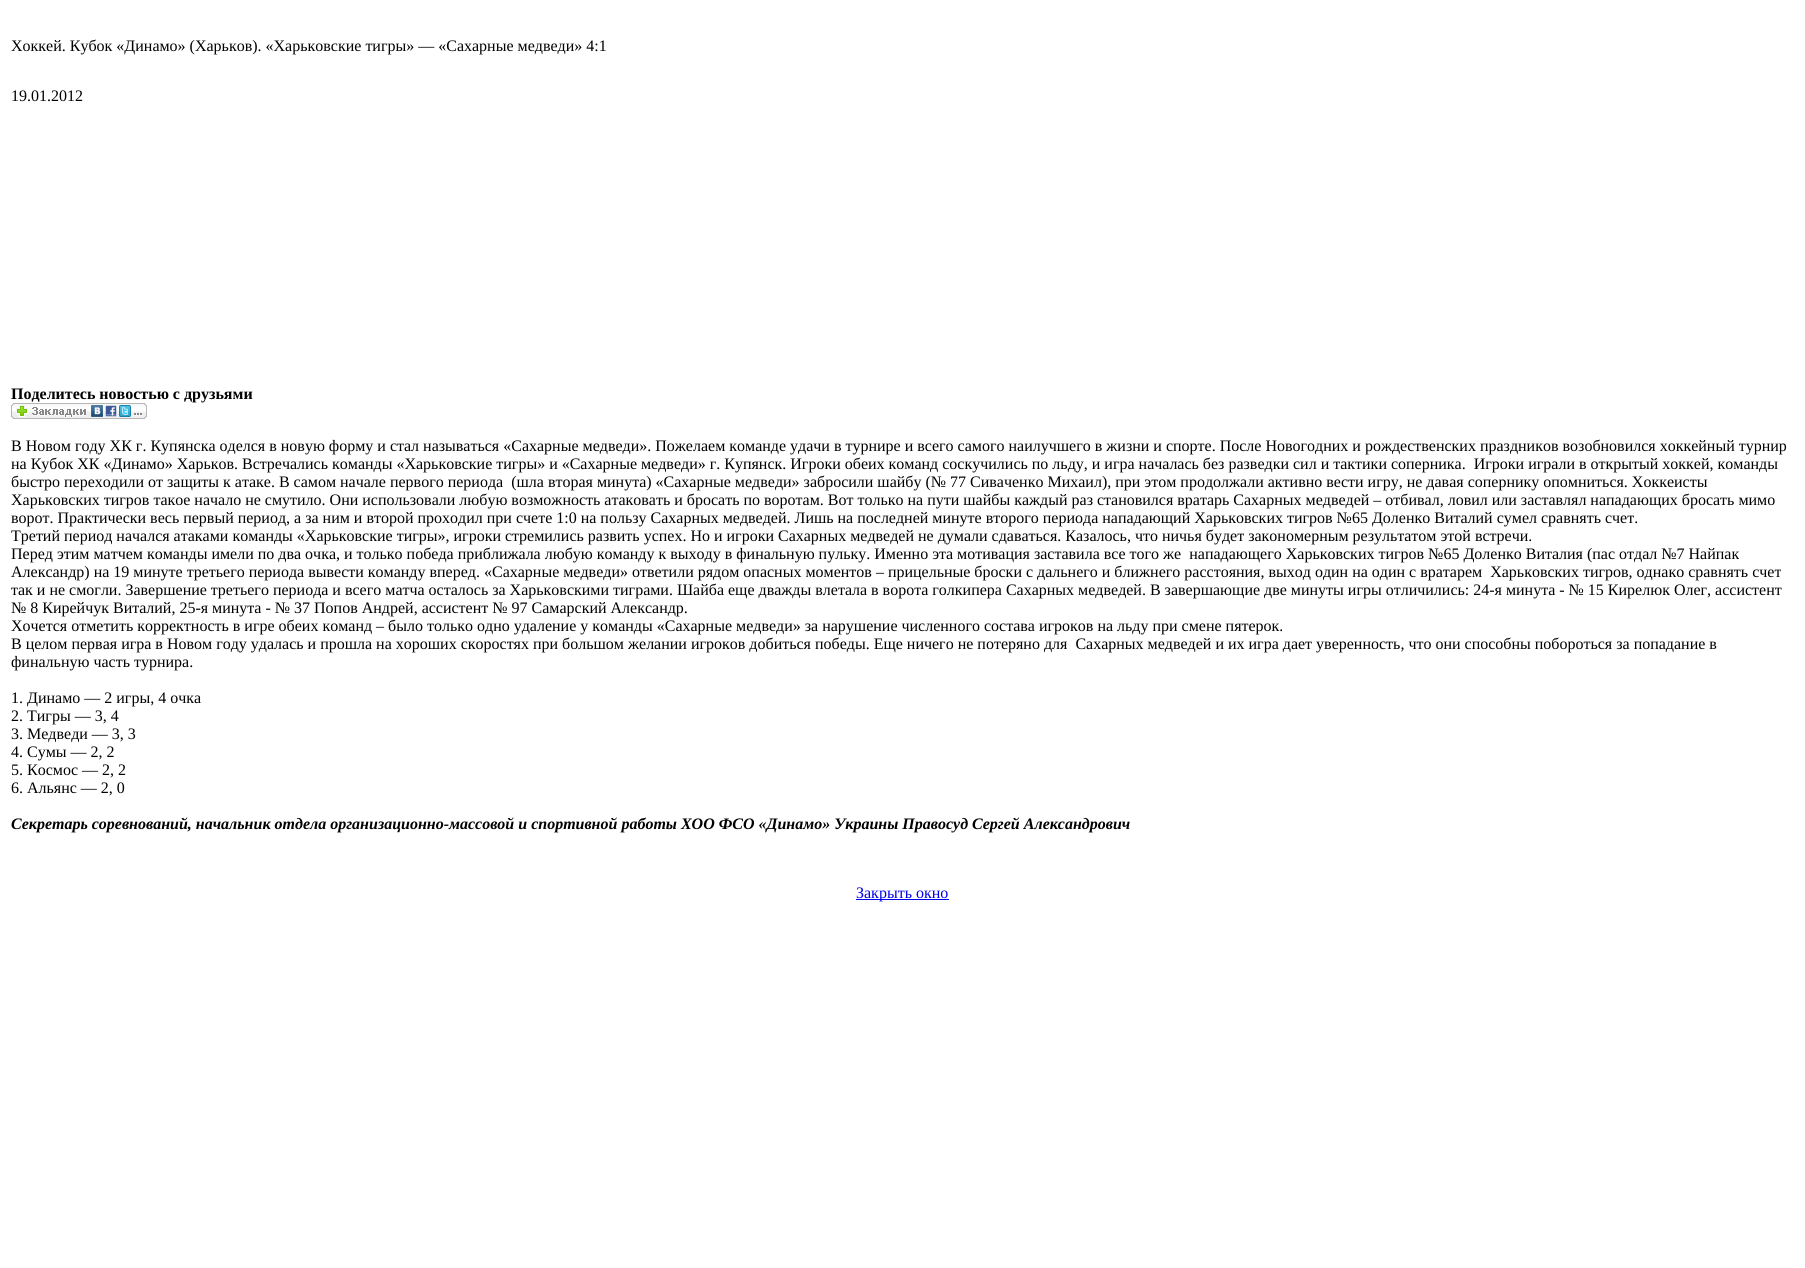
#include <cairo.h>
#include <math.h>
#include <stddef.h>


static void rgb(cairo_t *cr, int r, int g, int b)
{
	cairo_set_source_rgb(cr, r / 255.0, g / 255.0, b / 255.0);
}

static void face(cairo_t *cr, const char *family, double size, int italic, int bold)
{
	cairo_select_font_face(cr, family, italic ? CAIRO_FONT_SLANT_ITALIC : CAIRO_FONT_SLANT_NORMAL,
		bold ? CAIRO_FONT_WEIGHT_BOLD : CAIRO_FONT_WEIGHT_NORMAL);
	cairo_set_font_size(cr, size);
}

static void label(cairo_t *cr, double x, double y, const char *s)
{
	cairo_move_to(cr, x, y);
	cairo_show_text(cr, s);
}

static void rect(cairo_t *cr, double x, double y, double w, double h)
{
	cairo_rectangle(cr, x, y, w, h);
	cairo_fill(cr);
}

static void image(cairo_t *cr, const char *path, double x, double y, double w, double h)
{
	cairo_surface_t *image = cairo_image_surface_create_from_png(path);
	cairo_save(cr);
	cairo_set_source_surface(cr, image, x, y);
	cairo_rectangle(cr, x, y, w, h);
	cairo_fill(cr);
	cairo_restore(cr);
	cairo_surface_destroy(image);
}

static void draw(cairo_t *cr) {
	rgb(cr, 255, 255, 255);
	cairo_paint(cr);
	face(cr, "Liberation Serif", 16, 0, 0);
	rgb(cr, 0, 0, 0);
	label(cr, 11, 51, "Хоккей. Кубок «Динамо» (Харьков). «Харьковские тигры» — «Сахарные медведи» 4:1");
	label(cr, 11, 101, "19.01.2012");
	face(cr, "Liberation Serif", 16, 0, 1);
	label(cr, 11, 399, "Поделитесь новостью с друзьями");
	image(cr, "image0.png", 11, 403, 136, 16);
	face(cr, "Liberation Serif", 16, 0, 0);
	label(cr, 11, 451, "В Новом году ХК г. Купянска оделся в новую форму и стал называться «Сахарные медведи». Пожелаем команде удачи в турнире и всего самого наилучшего в жизни и спорте. После Новогодних и рождественских праздников возобновился хоккейный турнир");
	label(cr, 11, 469, "на Кубок ХК «Динамо» Харьков. Встречались команды «Харьковские тигры» и «Сахарные медведи» г. Купянск. Игроки обеих команд соскучились по льду, и игра началась без разведки сил и тактики соперника.  Игроки играли в открытый хоккей, команды");
	label(cr, 11, 487, "быстро переходили от защиты к атаке. В самом начале первого периода  (шла вторая минута) «Сахарные медведи» забросили шайбу (№ 77 Сиваченко Михаил), при этом продолжали активно вести игру, не давая сопернику опомниться. Хоккеисты");
	label(cr, 11, 505, "Харьковских тигров такое начало не смутило. Они использовали любую возможность атаковать и бросать по воротам. Вот только на пути шайбы каждый раз становился вратарь Сахарных медведей – отбивал, ловил или заставлял нападающих бросать мимо");
	label(cr, 11, 523, "ворот. Практически весь первый период, а за ним и второй проходил при счете 1:0 на пользу Сахарных медведей. Лишь на последней минуте второго периода нападающий Харьковских тигров №65 Доленко Виталий сумел сравнять счет.");
	label(cr, 11, 541, "Третий период начался атаками команды «Харьковские тигры», игроки стремились развить успех. Но и игроки Сахарных медведей не думали сдаваться. Казалось, что ничья будет закономерным результатом этой встречи.");
	label(cr, 11, 559, "Перед этим матчем команды имели по два очка, и только победа приближала любую команду к выходу в финальную пульку. Именно эта мотивация заставила все того же  нападающего Харьковских тигров №65 Доленко Виталия (пас отдал №7 Найпак");
	label(cr, 11, 577, "Александр) на 19 минуте третьего периода вывести команду вперед. «Сахарные медведи» ответили рядом опасных моментов – прицельные броски с дальнего и ближнего расстояния, выход один на один с вратарем  Харьковских тигров, однако сравнять счет");
	label(cr, 11, 595, "так и не смогли. Завершение третьего периода и всего матча осталось за Харьковскими тиграми. Шайба еще дважды влетала в ворота голкипера Сахарных медведей. В завершающие две минуты игры отличились: 24-я минута - № 15 Кирелюк Олег, ассистент");
	label(cr, 11, 613, "№ 8 Кирейчук Виталий, 25-я минута - № 37 Попов Андрей, ассистент № 97 Самарский Александр.");
	label(cr, 11, 631, "Хочется отметить корректность в игре обеих команд – было только одно удаление у команды «Сахарные медведи» за нарушение численного состава игроков на льду при смене пятерок.");
	label(cr, 11, 649, "В целом первая игра в Новом году удалась и прошла на хороших скоростях при большом желании игроков добиться победы. Еще ничего не потеряно для  Сахарных медведей и их игра дает уверенность, что они способны побороться за попадание в");
	label(cr, 11, 667, "финальную часть турнира.");
	label(cr, 11, 703, "1. Динамо — 2 игры, 4 очка");
	label(cr, 11, 721, "2. Тигры — 3, 4");
	label(cr, 11, 739, "3. Медведи — 3, 3");
	label(cr, 11, 757, "4. Сумы — 2, 2");
	label(cr, 11, 775, "5. Космос — 2, 2");
	label(cr, 11, 793, "6. Альянс — 2, 0");
	face(cr, "Liberation Serif", 16, 1, 1);
	label(cr, 11, 829, "Секретарь соревнований, начальник отдела организационно-массовой и спортивной работы ХОО ФСО «Динамо» Украины Правосуд Сергей Александрович");
	rgb(cr, 0, 0, 238);
	rect(cr, 856, 899, 93, 1);
	face(cr, "Liberation Serif", 16, 0, 0);
	label(cr, 856, 898, "Закрыть окно");
}

int main(void) {
	cairo_surface_t *surface = cairo_image_surface_create(CAIRO_FORMAT_RGB24, 1805, 1268);
	cairo_t *cr = cairo_create(surface);
	cairo_font_options_t *options = cairo_font_options_create();
	cairo_font_options_set_hint_metrics(options, CAIRO_HINT_METRICS_OFF);
	cairo_font_options_set_hint_style(options, CAIRO_HINT_STYLE_NONE);
	cairo_set_font_options(cr, options);
	cairo_set_miter_limit(cr, 4);
	draw(cr);
	cairo_surface_write_to_png(surface, "render.png");
	cairo_font_options_destroy(options);
	cairo_destroy(cr);
	cairo_surface_destroy(surface);
	return 0;
}
